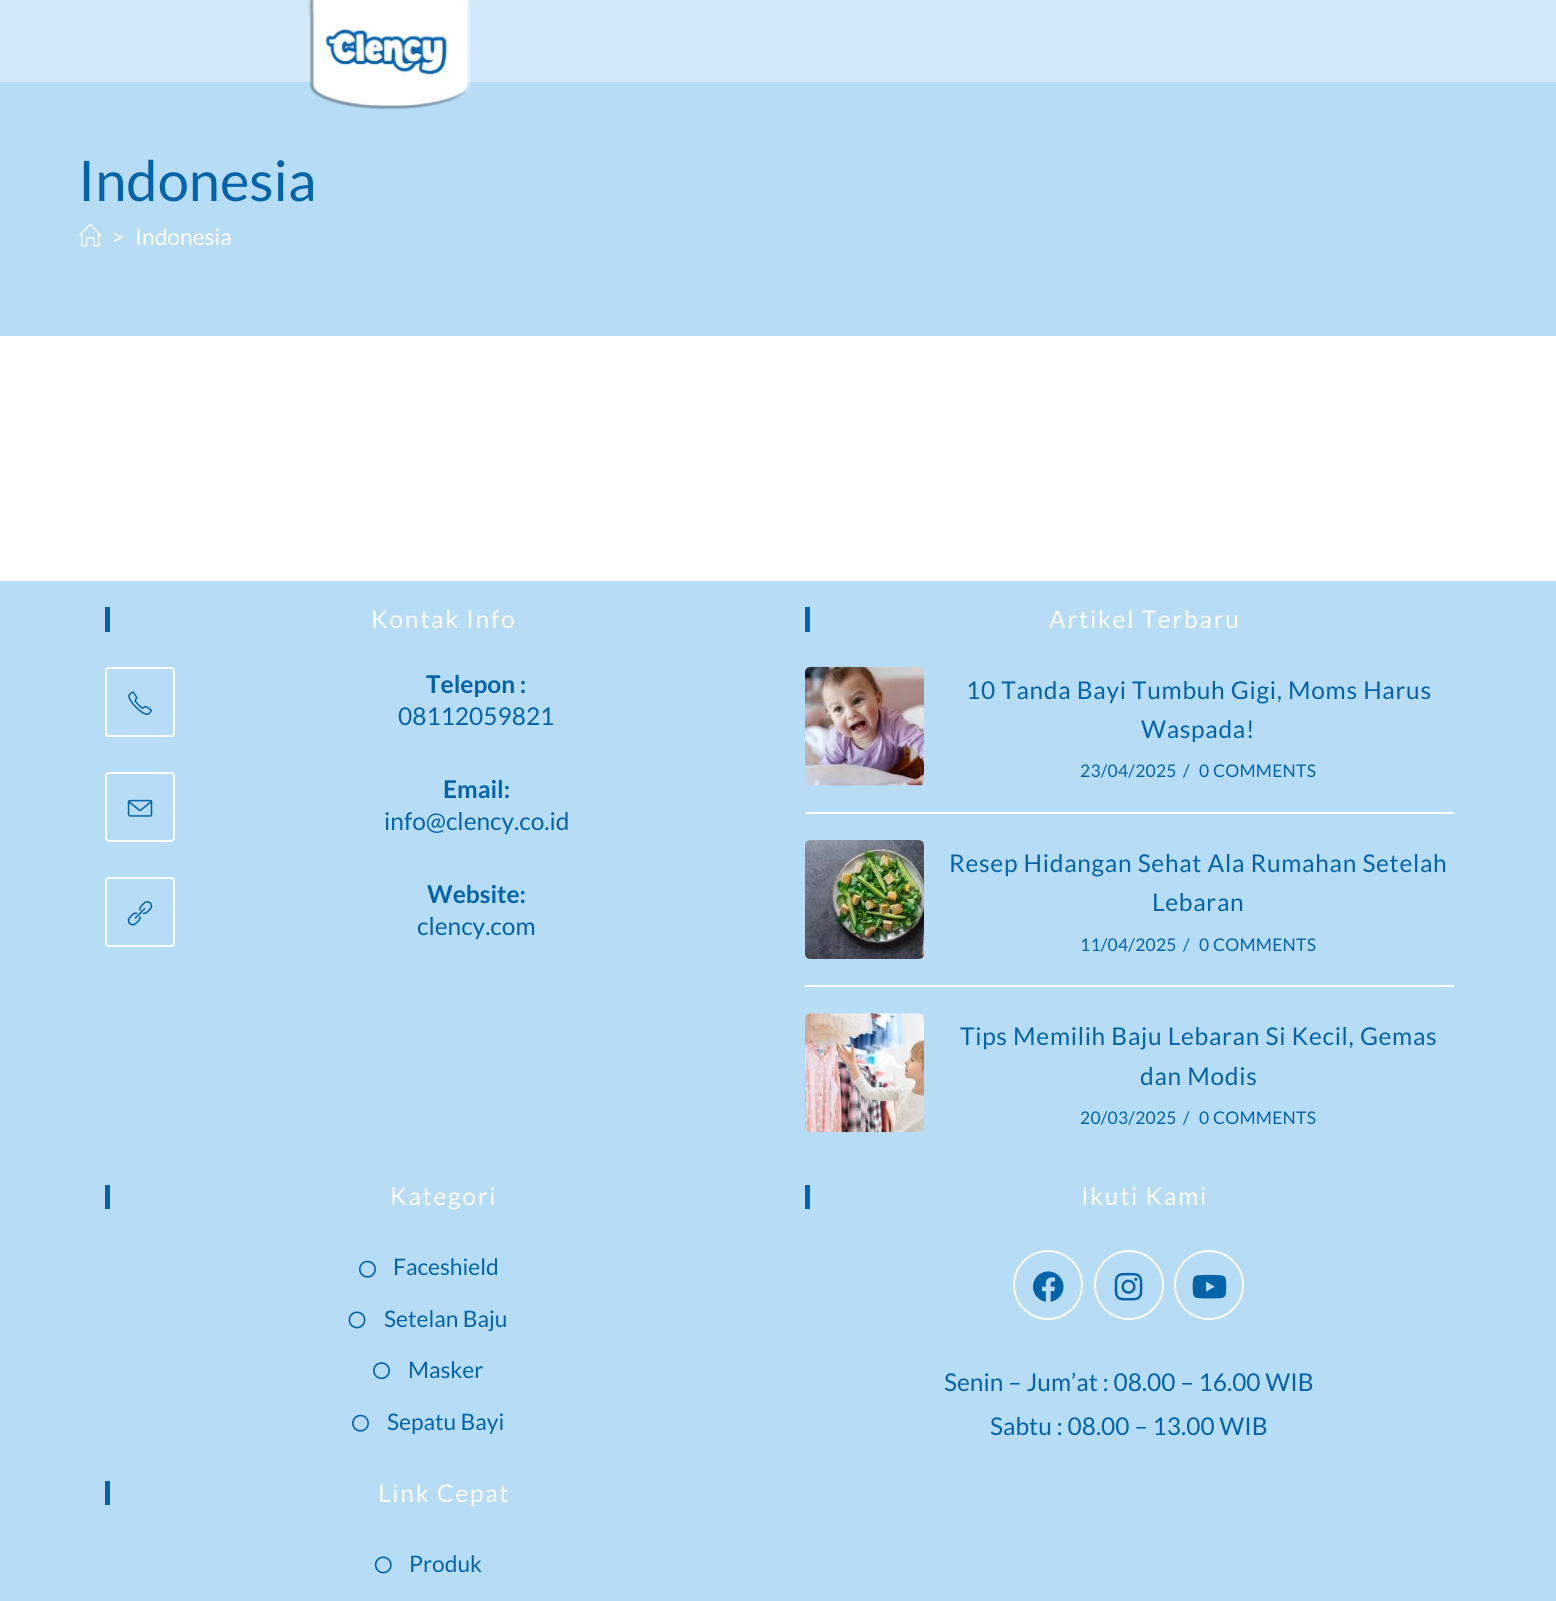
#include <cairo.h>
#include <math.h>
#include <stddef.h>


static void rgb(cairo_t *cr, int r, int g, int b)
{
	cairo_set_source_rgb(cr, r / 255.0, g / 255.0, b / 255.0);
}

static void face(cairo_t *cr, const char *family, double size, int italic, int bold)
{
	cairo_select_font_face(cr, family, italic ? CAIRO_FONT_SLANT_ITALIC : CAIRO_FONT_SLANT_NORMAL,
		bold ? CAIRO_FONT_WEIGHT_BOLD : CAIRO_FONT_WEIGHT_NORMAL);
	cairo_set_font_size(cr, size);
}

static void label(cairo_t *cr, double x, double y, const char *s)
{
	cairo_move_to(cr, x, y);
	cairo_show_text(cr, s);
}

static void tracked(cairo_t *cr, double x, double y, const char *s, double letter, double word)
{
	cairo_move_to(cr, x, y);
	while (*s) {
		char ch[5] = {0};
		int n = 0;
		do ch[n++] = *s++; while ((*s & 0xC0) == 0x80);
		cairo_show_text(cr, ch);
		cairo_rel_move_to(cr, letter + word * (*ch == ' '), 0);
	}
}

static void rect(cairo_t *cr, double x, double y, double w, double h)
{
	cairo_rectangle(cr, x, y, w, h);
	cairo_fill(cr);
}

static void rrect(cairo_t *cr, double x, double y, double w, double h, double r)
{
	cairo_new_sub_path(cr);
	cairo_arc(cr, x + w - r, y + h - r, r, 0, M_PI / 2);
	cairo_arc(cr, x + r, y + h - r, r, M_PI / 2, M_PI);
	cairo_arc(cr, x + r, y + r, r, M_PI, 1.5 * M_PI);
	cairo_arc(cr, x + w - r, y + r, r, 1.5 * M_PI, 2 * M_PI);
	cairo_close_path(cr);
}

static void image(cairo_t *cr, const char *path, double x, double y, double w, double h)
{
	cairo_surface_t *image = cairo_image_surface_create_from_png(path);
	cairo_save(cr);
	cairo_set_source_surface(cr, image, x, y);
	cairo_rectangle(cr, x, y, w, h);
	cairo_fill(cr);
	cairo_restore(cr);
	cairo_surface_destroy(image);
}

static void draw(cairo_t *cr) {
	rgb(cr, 255, 255, 255);
	cairo_paint(cr);
	rgb(cr, 209, 233, 249);
	rect(cr, 0, 0, 1556, 82);
	rgb(cr, 183, 220, 246);
	rect(cr, 0, 82, 1556, 254);
	image(cr, "image0.png", 307, 0, 164, 110);
	face(cr, "Lato", 56, 0, 0);
	rgb(cr, 4, 100, 169);
	label(cr, 78, 201, "Indonesia");
	image(cr, "image1.png", 79, 223, 23, 24);
	face(cr, "Lato", 22.75, 0, 0);
	rgb(cr, 255, 255, 255);
	label(cr, 111, 245, ">");
	label(cr, 135, 245, "Indonesia");
	rgb(cr, 183, 220, 246);
	rect(cr, 0, 581, 1556, 1020);
	rgb(cr, 4, 100, 169);
	rect(cr, 105, 607, 5, 25);
	face(cr, "Lato", 24.5, 0, 0);
	rgb(cr, 255, 255, 255);
	tracked(cr, 371, 628, "Kontak Info", 1.75, 0);
	rrect(cr, 106, 668, 68, 68, 3);
	cairo_stroke(cr);
	image(cr, "image2.png", 128, 691, 24, 25);
	face(cr, "Lato", 24.5, 0, 1);
	rgb(cr, 4, 100, 169);
	label(cr, 426, 693, "Telepon :");
	face(cr, "Lato", 24.5, 0, 0);
	label(cr, 398, 725, "08112059821");
	rrect(cr, 106, 773, 68, 68, 3);
	rgb(cr, 255, 255, 255);
	cairo_stroke(cr);
	image(cr, "image3.png", 127, 799, 26, 18);
	face(cr, "Lato", 24.5, 0, 1);
	rgb(cr, 4, 100, 169);
	label(cr, 443, 798, "Email:");
	face(cr, "Lato", 24.5, 0, 0);
	label(cr, 384, 830, "info@clency.co.id");
	rrect(cr, 106, 878, 68, 68, 3);
	rgb(cr, 255, 255, 255);
	cairo_stroke(cr);
	image(cr, "image4.png", 127, 901, 26, 25);
	face(cr, "Lato", 24.5, 0, 1);
	rgb(cr, 4, 100, 169);
	label(cr, 427, 903, "Website:");
	face(cr, "Lato", 24.5, 0, 0);
	label(cr, 417, 935, "clency.com");
	rect(cr, 805, 607, 5, 25);
	rgb(cr, 255, 255, 255);
	tracked(cr, 1049, 628, "Artikel Terbaru", 1.75, 0);
	image(cr, "image5.png", 805, 666, 119, 120);
	rgb(cr, 4, 100, 169);
	tracked(cr, 966, 699, "10 Tanda Bayi Tumbuh Gigi, Moms Harus", 0.7, 0);
	tracked(cr, 1141, 738, "Waspada!", 0.7, 0);
	face(cr, "Lato", 17.5, 0, 0);
	tracked(cr, 1080, 777, "23/04/2025", 0.25, 0);
	tracked(cr, 1183, 777, "/", 0.25, 0);
	tracked(cr, 1199, 777, "0 COMMENTS", 0.25, 0);
	rgb(cr, 255, 255, 255);
	rect(cr, 805, 812, 649, 2);
	image(cr, "image6.png", 805, 840, 119, 119);
	face(cr, "Lato", 24.5, 0, 0);
	rgb(cr, 4, 100, 169);
	tracked(cr, 949, 872, "Resep Hidangan Sehat Ala Rumahan Setelah", 0.7, 0);
	tracked(cr, 1152, 911, "Lebaran", 0.7, 0);
	face(cr, "Lato", 17.5, 0, 0);
	tracked(cr, 1080, 951, "11/04/2025", 0.25, 0);
	tracked(cr, 1183, 951, "/", 0.25, 0);
	tracked(cr, 1199, 951, "0 COMMENTS", 0.25, 0);
	rgb(cr, 255, 255, 255);
	rect(cr, 805, 985, 649, 2);
	image(cr, "image7.png", 805, 1013, 119, 120);
	face(cr, "Lato", 24.5, 0, 0);
	rgb(cr, 4, 100, 169);
	tracked(cr, 960, 1045, "Tips Memilih Baju Lebaran Si Kecil, Gemas", 0.7, 0);
	tracked(cr, 1140, 1085, "dan Modis", 0.7, 0);
	face(cr, "Lato", 17.5, 0, 0);
	tracked(cr, 1080, 1124, "20/03/2025", 0.25, 0);
	tracked(cr, 1183, 1124, "/", 0.25, 0);
	tracked(cr, 1199, 1124, "0 COMMENTS", 0.25, 0);
	rect(cr, 105, 1185, 5, 24);
	face(cr, "Lato", 24.5, 0, 0);
	rgb(cr, 255, 255, 255);
	tracked(cr, 390, 1205, "Kategori", 1.75, 0);
	image(cr, "image8.png", 359, 1260, 17, 18);
	face(cr, "Lato", 22.75, 0, 0);
	rgb(cr, 4, 100, 169);
	label(cr, 393, 1275, "Faceshield");
	image(cr, "image9.png", 348, 1311, 18, 18);
	label(cr, 384, 1327, "Setelan Baju");
	image(cr, "image10.png", 373, 1362, 17, 18);
	label(cr, 408, 1378, "Masker");
	image(cr, "image8.png", 352, 1414, 17, 18);
	label(cr, 387, 1430, "Sepatu Bayi");
	rect(cr, 105, 1481, 5, 24);
	face(cr, "Lato", 24.5, 0, 0);
	rgb(cr, 255, 255, 255);
	tracked(cr, 378, 1502, "Link Cepat", 1.75, 0);
	image(cr, "image11.png", 374, 1556, 18, 18);
	face(cr, "Lato", 22.75, 0, 0);
	rgb(cr, 4, 100, 169);
	label(cr, 409, 1572, "Produk");
	rect(cr, 805, 1185, 5, 24);
	face(cr, "Lato", 24.5, 0, 0);
	rgb(cr, 255, 255, 255);
	tracked(cr, 1081, 1205, "Ikuti Kami", 1.75, 0);
	cairo_new_path(cr);
	cairo_arc(cr, 1048, 1285, 34, 0, 2 * M_PI);
	cairo_stroke(cr);
	image(cr, "image12.png", 1033, 1271, 31, 31);
	cairo_arc(cr, 1129, 1285, 34, 0, 2 * M_PI);
	cairo_stroke(cr);
	image(cr, "image13.png", 1114, 1272, 29, 29);
	cairo_arc(cr, 1209, 1285, 34, 0, 2 * M_PI);
	cairo_stroke(cr);
	image(cr, "image14.png", 1192, 1274, 35, 25);
	rgb(cr, 4, 100, 169);
	label(cr, 944, 1391, "Senin – Jum’at : 08.00 – 16.00 WIB");
	label(cr, 990, 1435, "Sabtu : 08.00 – 13.00 WIB");
}

int main(void) {
	cairo_surface_t *surface = cairo_image_surface_create(CAIRO_FORMAT_RGB24, 1556, 1601);
	cairo_t *cr = cairo_create(surface);
	cairo_font_options_t *options = cairo_font_options_create();
	cairo_font_options_set_hint_metrics(options, CAIRO_HINT_METRICS_OFF);
	cairo_font_options_set_hint_style(options, CAIRO_HINT_STYLE_NONE);
	cairo_set_font_options(cr, options);
	cairo_set_miter_limit(cr, 4);
	draw(cr);
	cairo_surface_write_to_png(surface, "render.png");
	cairo_font_options_destroy(options);
	cairo_destroy(cr);
	cairo_surface_destroy(surface);
	return 0;
}
